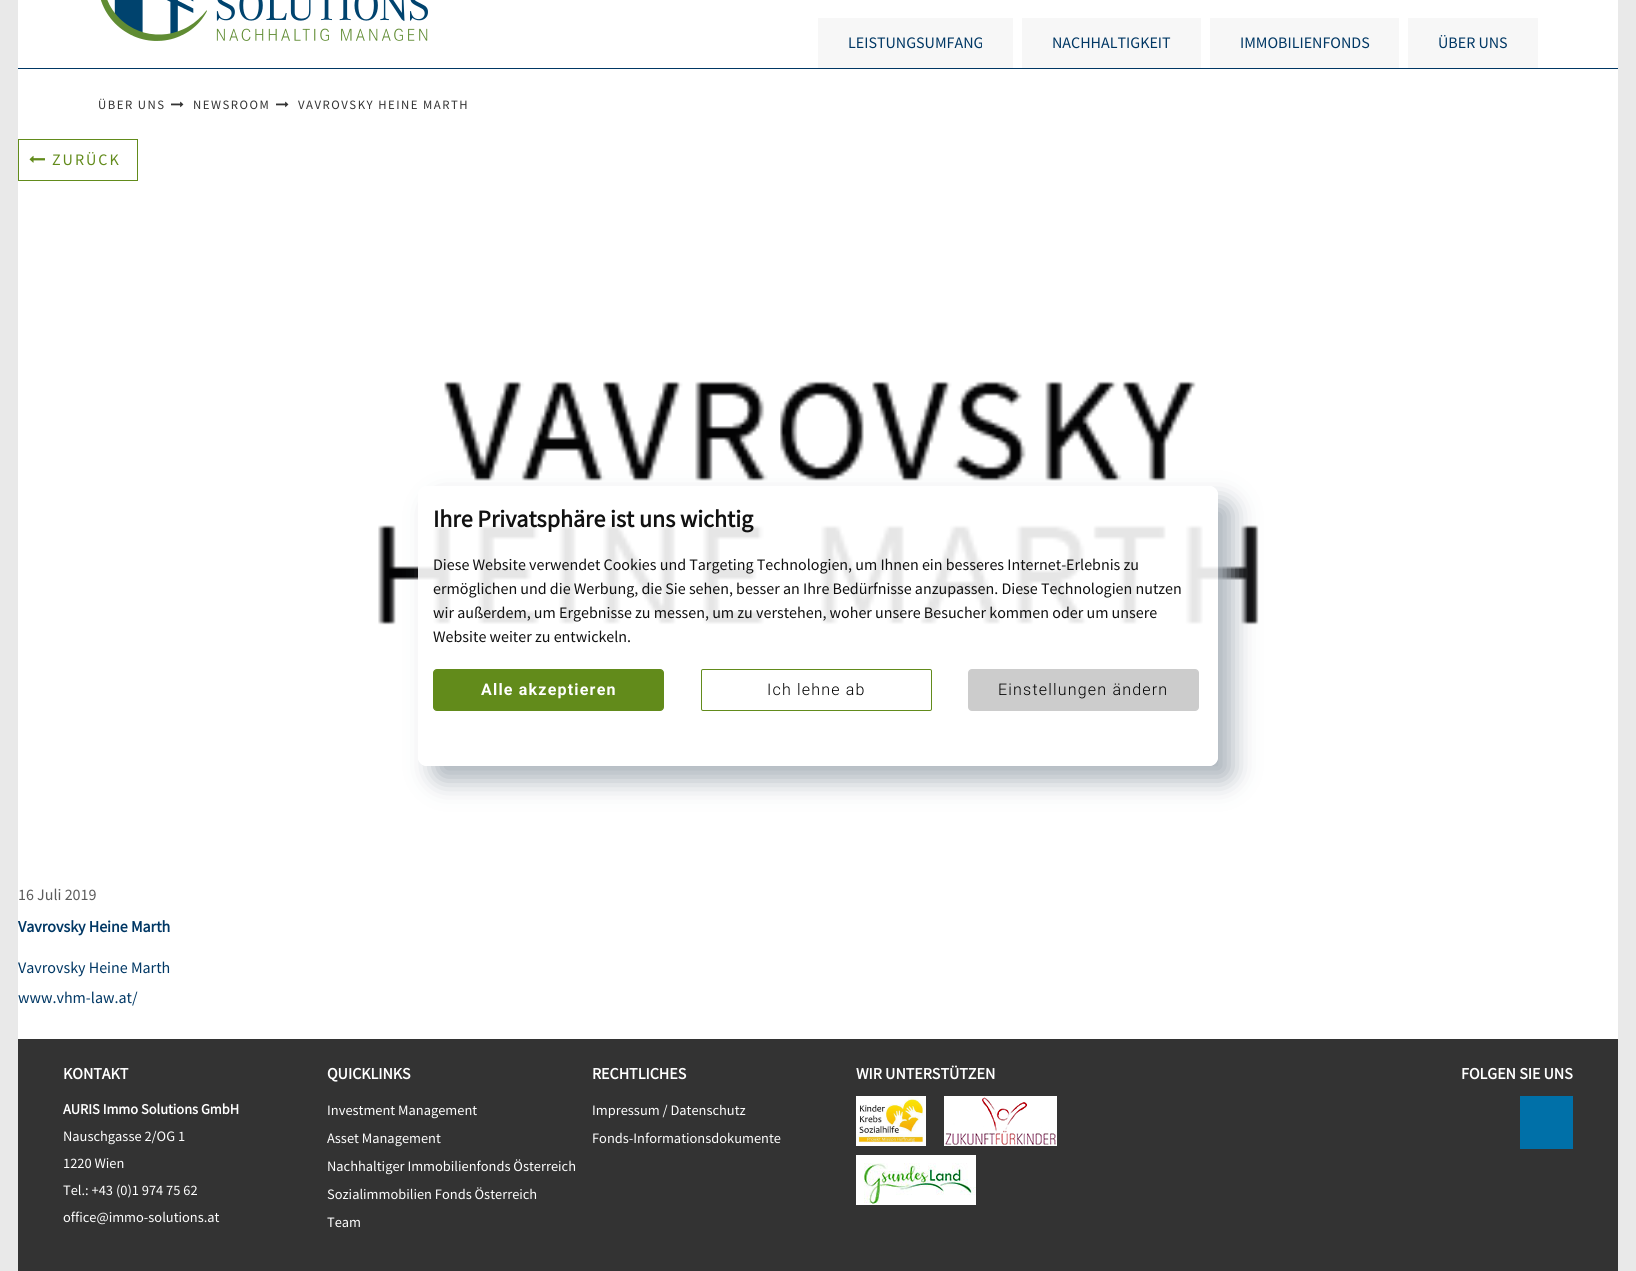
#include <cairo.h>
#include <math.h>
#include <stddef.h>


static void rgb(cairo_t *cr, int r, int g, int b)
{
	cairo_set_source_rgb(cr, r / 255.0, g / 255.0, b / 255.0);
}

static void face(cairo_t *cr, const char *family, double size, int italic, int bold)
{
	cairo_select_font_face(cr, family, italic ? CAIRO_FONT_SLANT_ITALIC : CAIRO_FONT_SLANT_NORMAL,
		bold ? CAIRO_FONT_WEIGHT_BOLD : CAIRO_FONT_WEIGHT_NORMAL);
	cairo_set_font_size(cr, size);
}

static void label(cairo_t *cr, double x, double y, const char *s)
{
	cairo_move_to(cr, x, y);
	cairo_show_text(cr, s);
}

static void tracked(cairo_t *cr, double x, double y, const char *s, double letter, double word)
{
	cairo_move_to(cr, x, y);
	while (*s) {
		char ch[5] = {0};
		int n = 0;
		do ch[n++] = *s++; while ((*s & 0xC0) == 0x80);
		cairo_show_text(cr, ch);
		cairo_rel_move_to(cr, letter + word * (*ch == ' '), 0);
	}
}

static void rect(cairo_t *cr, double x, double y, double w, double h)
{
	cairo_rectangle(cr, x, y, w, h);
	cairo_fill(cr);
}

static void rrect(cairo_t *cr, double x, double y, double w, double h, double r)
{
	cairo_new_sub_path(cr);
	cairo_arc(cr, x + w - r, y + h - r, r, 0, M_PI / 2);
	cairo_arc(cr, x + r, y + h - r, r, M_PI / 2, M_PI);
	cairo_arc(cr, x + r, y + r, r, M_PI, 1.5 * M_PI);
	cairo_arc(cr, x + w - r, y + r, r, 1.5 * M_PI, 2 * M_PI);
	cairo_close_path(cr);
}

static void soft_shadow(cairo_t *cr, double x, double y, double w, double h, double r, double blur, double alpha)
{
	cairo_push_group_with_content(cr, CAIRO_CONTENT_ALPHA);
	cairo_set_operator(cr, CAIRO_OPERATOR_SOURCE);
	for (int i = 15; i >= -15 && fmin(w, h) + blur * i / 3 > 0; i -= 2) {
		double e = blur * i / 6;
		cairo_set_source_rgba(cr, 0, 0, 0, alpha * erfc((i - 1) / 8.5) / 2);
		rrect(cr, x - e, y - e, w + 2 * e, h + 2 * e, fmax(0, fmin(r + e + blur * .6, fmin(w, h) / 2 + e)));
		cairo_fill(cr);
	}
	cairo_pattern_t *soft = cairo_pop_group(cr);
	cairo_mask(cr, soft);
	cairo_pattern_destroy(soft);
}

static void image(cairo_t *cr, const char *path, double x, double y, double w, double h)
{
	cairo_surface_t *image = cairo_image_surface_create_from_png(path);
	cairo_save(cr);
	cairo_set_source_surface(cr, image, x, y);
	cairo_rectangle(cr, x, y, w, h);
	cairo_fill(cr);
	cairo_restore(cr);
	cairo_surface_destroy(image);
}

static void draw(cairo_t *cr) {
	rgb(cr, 233, 233, 233);
	cairo_paint(cr);
	rgb(cr, 255, 255, 255);
	rect(cr, 18, 0, 1600, 1039);
	image(cr, "image0.png", 100, 0, 328, 41);
	rgb(cr, 247, 247, 247);
	rect(cr, 818, 18, 195, 50);
	face(cr, "Source Sans Pro", 16, 0, 0);
	rgb(cr, 0, 55, 100);
	label(cr, 848, 48, "LEISTUNGSUMFANG");
	rgb(cr, 247, 247, 247);
	rect(cr, 1022, 18, 179, 50);
	rgb(cr, 0, 55, 100);
	label(cr, 1052, 48, "NACHHALTIGKEIT");
	rgb(cr, 247, 247, 247);
	rect(cr, 1210, 18, 189, 50);
	rgb(cr, 0, 55, 100);
	label(cr, 1240, 48, "IMMOBILIENFONDS");
	rgb(cr, 247, 247, 247);
	rect(cr, 1408, 18, 130, 50);
	rgb(cr, 0, 55, 100);
	label(cr, 1438, 48, "ÜBER UNS");
	rect(cr, 18, 68, 1600, 1);
	face(cr, "Source Sans Pro", 12.75, 0, 0);
	rgb(cr, 51, 51, 51);
	tracked(cr, 98, 109, "ÜBER UNS", 1.5, 0);
	image(cr, "image1.png", 171, 101, 13, 7);
	tracked(cr, 193, 109, "NEWSROOM", 1.5, 0);
	image(cr, "image1.png", 276, 101, 13, 7);
	tracked(cr, 298, 109, "VAVROVSKY HEINE MARTH", 1.5, 0);
	cairo_rectangle(cr, 18.5, 139.5, 119, 41);
	rgb(cr, 98, 139, 27);
	cairo_set_line_width(cr, 1);
	cairo_stroke(cr);
	image(cr, "image2.png", 29, 155, 16, 8);
	face(cr, "Source Sans Pro", 16, 0, 0);
	tracked(cr, 52, 165, "ZURÜCK", 2, 0);
	image(cr, "image3.png", 378, 381, 881, 244);
	rgb(cr, 92, 92, 92);
	label(cr, 18, 900, "16 Juli 2019");
	face(cr, "Source Sans Pro", 16, 0, 1);
	rgb(cr, 0, 55, 100);
	label(cr, 18, 932, "Vavrovsky Heine Marth");
	face(cr, "Source Sans Pro", 16, 0, 0);
	label(cr, 18, 973, "Vavrovsky Heine Marth");
	label(cr, 18, 1003, "www.vhm-law.at/");
	rgb(cr, 51, 51, 51);
	rect(cr, 18, 1039, 1600, 232);
	face(cr, "Source Sans Pro", 16, 0, 1);
	rgb(cr, 255, 255, 255);
	label(cr, 63, 1079, "KONTAKT");
	face(cr, "Source Sans Pro", 14.4, 0, 1);
	label(cr, 63, 1114, "AURIS Immo Solutions GmbH");
	face(cr, "Source Sans Pro", 14.4, 0, 0);
	label(cr, 63, 1141, "Nauschgasse 2/OG 1");
	label(cr, 63, 1168, "1220 Wien");
	label(cr, 63, 1195, "Tel.: +43 (0)1 974 75 62");
	label(cr, 63, 1222, "office@immo-solutions.at");
	face(cr, "Source Sans Pro", 16, 0, 1);
	label(cr, 327, 1079, "QUICKLINKS");
	face(cr, "Source Sans Pro", 14.4, 0, 0);
	label(cr, 327, 1115, "Investment Management");
	label(cr, 327, 1143, "Asset Management");
	label(cr, 327, 1171, "Nachhaltiger Immobilienfonds Österreich");
	label(cr, 327, 1199, "Sozialimmobilien Fonds Österreich");
	label(cr, 327, 1227, "Team");
	face(cr, "Source Sans Pro", 16, 0, 1);
	label(cr, 592, 1079, "RECHTLICHES");
	face(cr, "Source Sans Pro", 14.4, 0, 0);
	label(cr, 592, 1115, "Impressum / Datenschutz");
	label(cr, 592, 1143, "Fonds-Informationsdokumente");
	face(cr, "Source Sans Pro", 16, 0, 1);
	label(cr, 856, 1079, "WIR UNTERSTÜTZEN");
	image(cr, "image4.png", 856, 1096, 70, 50);
	image(cr, "image5.png", 944, 1096, 113, 50);
	image(cr, "image6.png", 856, 1155, 120, 50);
	label(cr, 1461, 1079, "FOLGEN SIE UNS");
	rgb(cr, 0, 112, 168);
	rect(cr, 1520, 1096, 53, 53);
	cairo_save(cr);
	cairo_set_fill_rule(cr, CAIRO_FILL_RULE_EVEN_ODD);
	cairo_new_path(cr);
	cairo_move_to(cr, 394, 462);
	cairo_line_to(cr, 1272, 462);
	cairo_line_to(cr, 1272, 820);
	cairo_line_to(cr, 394, 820);
	cairo_close_path(cr);
	cairo_move_to(cr, 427, 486);
	cairo_line_to(cr, 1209, 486);
	cairo_curve_to(cr, 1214, 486, 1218, 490, 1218, 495);
	cairo_line_to(cr, 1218, 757);
	cairo_curve_to(cr, 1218, 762, 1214, 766, 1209, 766);
	cairo_line_to(cr, 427, 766);
	cairo_curve_to(cr, 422, 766, 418, 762, 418, 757);
	cairo_line_to(cr, 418, 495);
	cairo_curve_to(cr, 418, 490, 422, 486, 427, 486);
	cairo_close_path(cr);
	cairo_clip(cr);
	rgb(cr, 173, 181, 189);
	soft_shadow(cr, 433, 501, 800, 280, 9, 12.5, 1);
	cairo_restore(cr);
	cairo_set_source_rgba(cr, 1, 1, 1, 0.9);
	rrect(cr, 418, 486, 800, 280, 9);
	cairo_fill(cr);
	face(cr, "Source Sans Pro", 24, 0, 1);
	rgb(cr, 17, 17, 17);
	label(cr, 433, 527, "Ihre Privatsphäre ist uns wichtig");
	face(cr, "Source Sans Pro", 16, 0, 0);
	label(cr, 433, 570, "Diese Website verwendet Cookies und Targeting Technologien, um Ihnen ein besseres Internet-Erlebnis zu");
	label(cr, 433, 594, "ermöglichen und die Werbung, die Sie sehen, besser an Ihre Bedürfnisse anzupassen. Diese Technologien nutzen");
	label(cr, 433, 618, "wir außerdem, um Ergebnisse zu messen, um zu verstehen, woher unsere Besucher kommen oder um unsere");
	label(cr, 433, 642, "Website weiter zu entwickeln.");
	rgb(cr, 98, 139, 27);
	rrect(cr, 433.5, 669.5, 230, 41, 3.5);
	cairo_fill_preserve(cr);
	cairo_stroke(cr);
	face(cr, "Roboto", 16, 0, 1);
	rgb(cr, 255, 255, 255);
	tracked(cr, 481, 695, "Alle akzeptieren", 1.2, 0);
	rrect(cr, 701.5, 669.5, 230, 41, 1.5);
	rgb(cr, 98, 139, 27);
	cairo_stroke(cr);
	face(cr, "Roboto Light", 16, 0, 0);
	rgb(cr, 0, 0, 0);
	tracked(cr, 767, 695, "Ich lehne ab", 1.2, 0);
	rgb(cr, 204, 204, 204);
	rrect(cr, 968.5, 669.5, 230, 41, 3.5);
	cairo_fill_preserve(cr);
	cairo_stroke(cr);
	rgb(cr, 0, 0, 0);
	tracked(cr, 998, 695, "Einstellungen ändern", 1.2, 0);
}

int main(void) {
	cairo_surface_t *surface = cairo_image_surface_create(CAIRO_FORMAT_RGB24, 1636, 1271);
	cairo_t *cr = cairo_create(surface);
	cairo_font_options_t *options = cairo_font_options_create();
	cairo_font_options_set_hint_metrics(options, CAIRO_HINT_METRICS_OFF);
	cairo_font_options_set_hint_style(options, CAIRO_HINT_STYLE_NONE);
	cairo_set_font_options(cr, options);
	cairo_set_miter_limit(cr, 4);
	draw(cr);
	cairo_surface_write_to_png(surface, "render.png");
	cairo_font_options_destroy(options);
	cairo_destroy(cr);
	cairo_surface_destroy(surface);
	return 0;
}
